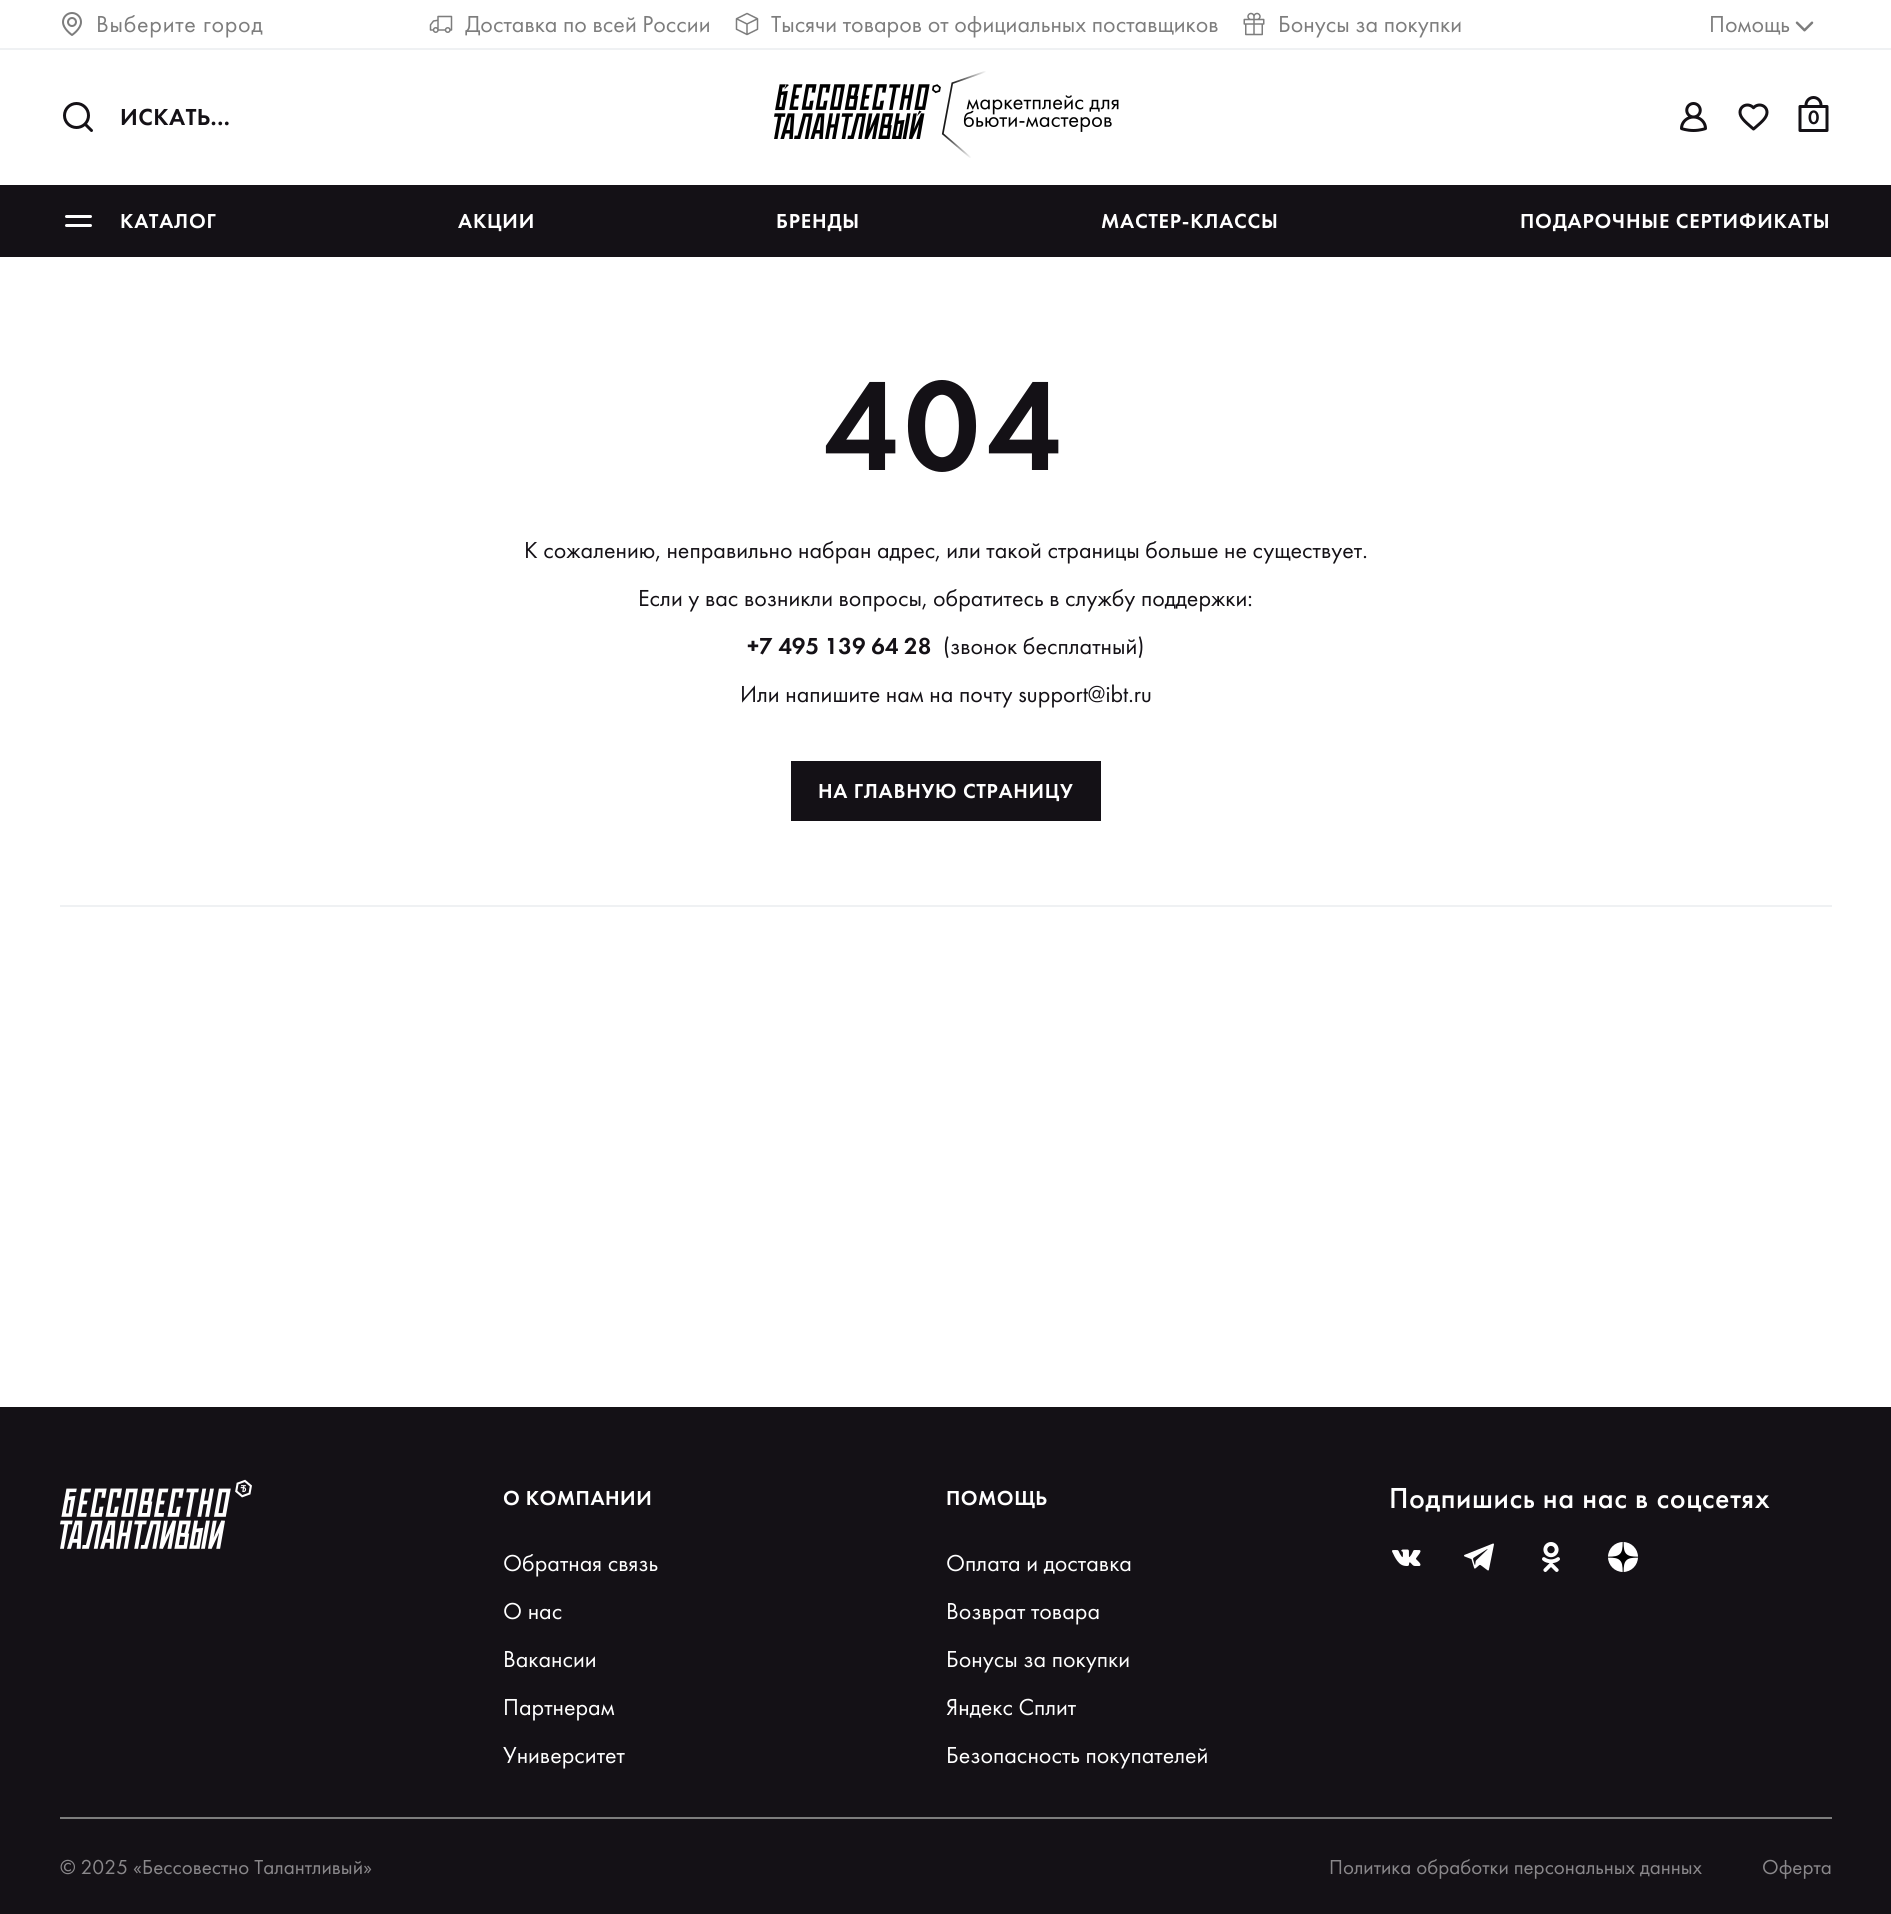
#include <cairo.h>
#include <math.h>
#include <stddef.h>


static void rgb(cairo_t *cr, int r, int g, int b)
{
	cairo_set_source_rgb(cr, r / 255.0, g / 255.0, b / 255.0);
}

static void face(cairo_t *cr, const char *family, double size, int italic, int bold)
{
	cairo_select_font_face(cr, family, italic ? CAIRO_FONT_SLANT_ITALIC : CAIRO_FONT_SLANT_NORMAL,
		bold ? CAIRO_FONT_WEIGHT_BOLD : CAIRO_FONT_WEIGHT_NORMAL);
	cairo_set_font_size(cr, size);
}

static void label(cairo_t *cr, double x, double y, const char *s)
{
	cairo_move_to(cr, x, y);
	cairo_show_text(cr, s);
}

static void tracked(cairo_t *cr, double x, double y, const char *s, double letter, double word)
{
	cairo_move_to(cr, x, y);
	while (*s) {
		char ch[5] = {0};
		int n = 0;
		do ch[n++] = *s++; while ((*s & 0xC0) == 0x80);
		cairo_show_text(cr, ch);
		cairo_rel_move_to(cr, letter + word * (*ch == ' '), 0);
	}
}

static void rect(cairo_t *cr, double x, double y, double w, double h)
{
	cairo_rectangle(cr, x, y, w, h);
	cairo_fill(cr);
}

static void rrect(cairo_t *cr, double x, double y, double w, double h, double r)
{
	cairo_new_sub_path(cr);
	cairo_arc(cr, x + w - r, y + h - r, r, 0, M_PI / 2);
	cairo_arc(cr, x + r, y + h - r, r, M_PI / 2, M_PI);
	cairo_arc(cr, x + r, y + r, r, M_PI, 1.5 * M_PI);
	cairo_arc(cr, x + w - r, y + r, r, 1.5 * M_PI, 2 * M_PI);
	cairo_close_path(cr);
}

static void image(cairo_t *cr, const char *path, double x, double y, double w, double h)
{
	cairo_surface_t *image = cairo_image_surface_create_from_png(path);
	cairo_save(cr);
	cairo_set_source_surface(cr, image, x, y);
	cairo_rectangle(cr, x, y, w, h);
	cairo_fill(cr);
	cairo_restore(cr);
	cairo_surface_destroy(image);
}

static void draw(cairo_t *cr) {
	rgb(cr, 255, 255, 255);
	cairo_paint(cr);
	rgb(cr, 239, 241, 243);
	rect(cr, 0, 48, 1891, 2);
	image(cr, "image0.png", 62, 12, 20, 24);
	face(cr, "Futura PT", 24, 0, 0);
	rgb(cr, 125, 125, 125);
	tracked(cr, 96, 32, "Выберите город", 0.75, 0);
	image(cr, "image1.png", 429, 15, 24, 18);
	label(cr, 465, 32, "Доставка по всей России");
	image(cr, "image2.png", 735, 12, 24, 24);
	label(cr, 771, 32, "Тысячи товаров от официальных поставщиков");
	image(cr, "image3.png", 1243, 12, 22, 24);
	label(cr, 1278, 32, "Бонусы за покупки");
	label(cr, 1709, 32, "Помощь");
	image(cr, "image4.png", 1795, 21, 19, 11);
	image(cr, "image5.png", 63, 102, 30, 30);
	face(cr, "Futura PT Medium", 24, 0, 0);
	rgb(cr, 20, 17, 22);
	tracked(cr, 120, 125, "ИСКАТЬ...", 0.5, 0);
	image(cr, "image6.png", 774, 71, 345, 87);
	image(cr, "image7.png", 1680, 102, 27, 30);
	image(cr, "image8.png", 1738, 103, 31, 28);
	image(cr, "image9.png", 1798, 96, 31, 36);
	face(cr, "Futura PT Medium", 20, 0, 0);
	tracked(cr, 1808, 124, "0", 0.75, 0);
	rect(cr, 0, 185, 1891, 72);
	rgb(cr, 255, 255, 255);
	rrect(cr, 65, 215, 27, 3, 1.5);
	cairo_fill(cr);
	rrect(cr, 65, 224, 27, 3, 1.5);
	cairo_fill(cr);
	face(cr, "Futura PT Medium", 21, 0, 0);
	tracked(cr, 120, 228, "КАТАЛОГ", 0.8, 0);
	tracked(cr, 458, 228, "АКЦИИ", 0.8, 0);
	tracked(cr, 776, 228, "БРЕНДЫ", 0.8, 0);
	tracked(cr, 1101, 228, "МАСТЕР-КЛАССЫ", 0.8, 0);
	tracked(cr, 1520, 228, "ПОДАРОЧНЫЕ СЕРТИФИКАТЫ", 0.8, 0);
	rgb(cr, 239, 241, 243);
	rect(cr, 60, 905, 1772, 2);
	face(cr, "Futura PT Medium", 132, 0, 0);
	rgb(cr, 20, 17, 22);
	tracked(cr, 823, 470, "404", 6.5, 0);
	face(cr, "Futura PT", 24, 0, 0);
	label(cr, 524, 558, "К сожалению, неправильно набран адрес, или такой страницы больше не существует.");
	label(cr, 638, 606, "Если у вас возникли вопросы, обратитесь в службу поддержки:");
	face(cr, "Futura PT Medium", 24, 0, 0);
	label(cr, 747, 654, "+7 495 139 64 28");
	face(cr, "Futura PT", 24, 0, 0);
	label(cr, 943, 654, "(звонок бесплатный)");
	label(cr, 740, 702, "Или напишите нам на почту support@ibt.ru");
	cairo_rectangle(cr, 792.5, 762.5, 307, 57);
	cairo_fill_preserve(cr);
	cairo_set_line_width(cr, 3);
	cairo_stroke(cr);
	face(cr, "Futura PT Medium", 21, 0, 0);
	rgb(cr, 255, 255, 255);
	tracked(cr, 818, 798, "НА ГЛАВНУЮ СТРАНИЦУ", 0.75, 0);
	rgb(cr, 20, 17, 22);
	rect(cr, 0, 1407, 1891, 507);
	image(cr, "image10.png", 60, 1479, 192, 70);
	rgb(cr, 255, 255, 255);
	tracked(cr, 503, 1505, "О КОМПАНИИ", 0.5, 0);
	face(cr, "Futura PT", 24, 0, 0);
	label(cr, 503, 1571, "Обратная связь");
	label(cr, 503, 1619, "О нас");
	label(cr, 503, 1667, "Вакансии");
	label(cr, 503, 1715, "Партнерам");
	label(cr, 503, 1763, "Университет");
	face(cr, "Futura PT Medium", 21, 0, 0);
	tracked(cr, 946, 1505, "ПОМОЩЬ", 0.5, 0);
	face(cr, "Futura PT", 24, 0, 0);
	label(cr, 946, 1571, "Оплата и доставка");
	label(cr, 946, 1619, "Возврат товара");
	label(cr, 946, 1667, "Бонусы за покупки");
	label(cr, 946, 1715, "Яндекс Сплит");
	label(cr, 946, 1763, "Безопасность покупателей");
	face(cr, "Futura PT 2 Medium", 30, 0, 0);
	tracked(cr, 1389, 1508, "Подпишись на нас в соцсетях", 0.6, 0);
	image(cr, "image11.png", 1392, 1549, 29, 17);
	image(cr, "image12.png", 1464, 1543, 30, 28);
	image(cr, "image13.png", 1542, 1542, 18, 30);
	image(cr, "image14.png", 1608, 1542, 30, 30);
	rgb(cr, 125, 125, 125);
	rect(cr, 60, 1817, 1772, 2);
	face(cr, "Futura PT", 21, 0, 0);
	rgb(cr, 138, 136, 139);
	label(cr, 60, 1874, "© 2025 «Бессовестно Талантливый»");
	label(cr, 1329, 1874, "Политика обработки персональных данных");
	label(cr, 1762, 1874, "Оферта");
}

int main(void) {
	cairo_surface_t *surface = cairo_image_surface_create(CAIRO_FORMAT_RGB24, 1891, 1914);
	cairo_t *cr = cairo_create(surface);
	cairo_font_options_t *options = cairo_font_options_create();
	cairo_font_options_set_hint_metrics(options, CAIRO_HINT_METRICS_OFF);
	cairo_font_options_set_hint_style(options, CAIRO_HINT_STYLE_NONE);
	cairo_set_font_options(cr, options);
	cairo_set_miter_limit(cr, 4);
	draw(cr);
	cairo_surface_write_to_png(surface, "render.png");
	cairo_font_options_destroy(options);
	cairo_destroy(cr);
	cairo_surface_destroy(surface);
	return 0;
}
